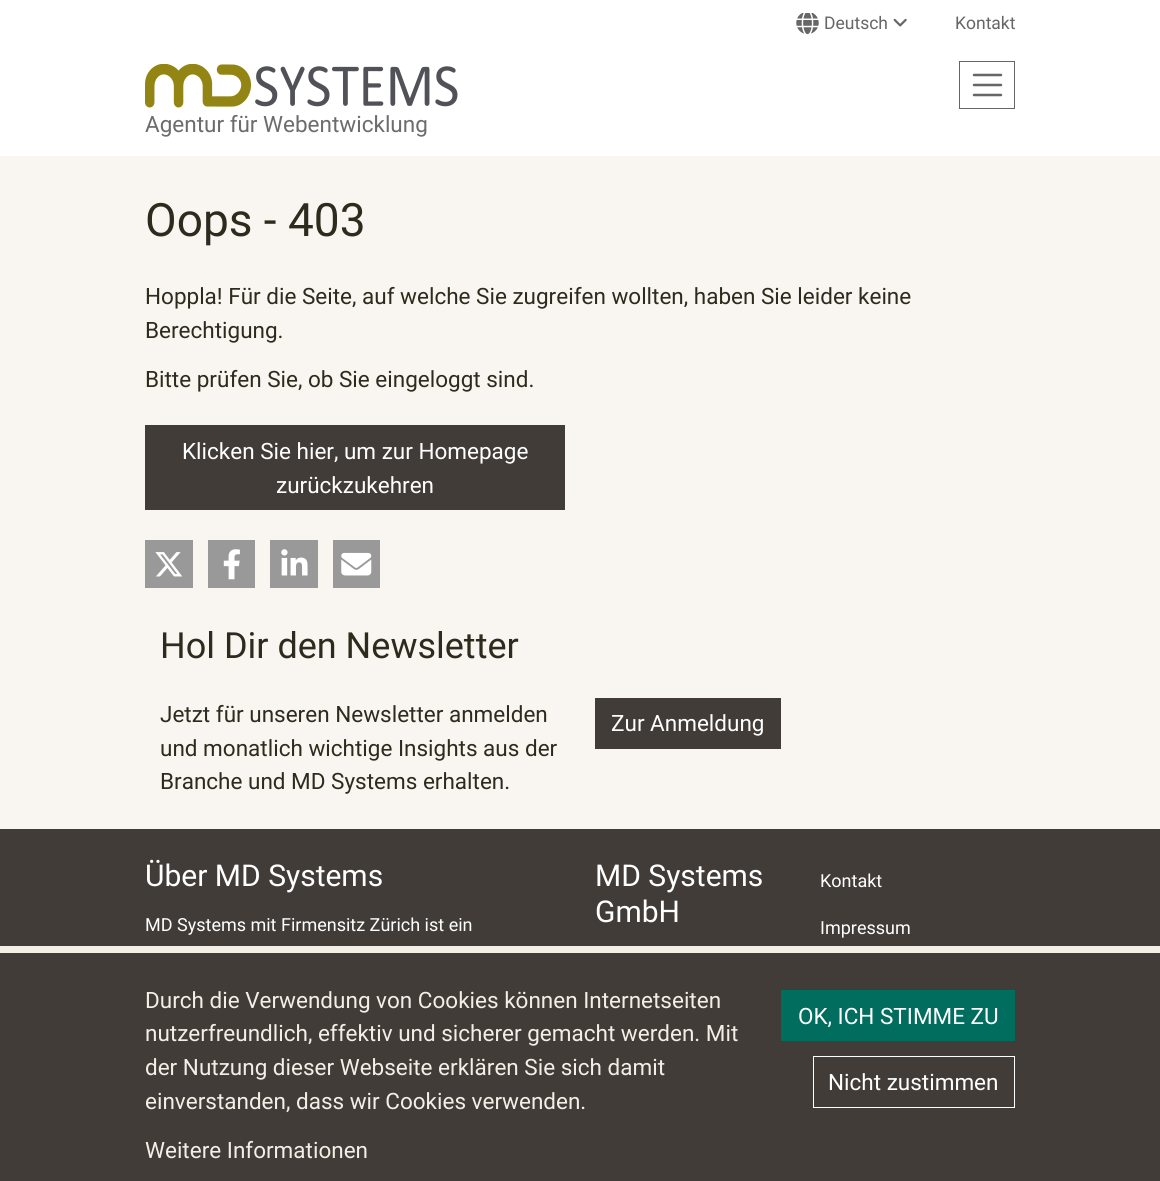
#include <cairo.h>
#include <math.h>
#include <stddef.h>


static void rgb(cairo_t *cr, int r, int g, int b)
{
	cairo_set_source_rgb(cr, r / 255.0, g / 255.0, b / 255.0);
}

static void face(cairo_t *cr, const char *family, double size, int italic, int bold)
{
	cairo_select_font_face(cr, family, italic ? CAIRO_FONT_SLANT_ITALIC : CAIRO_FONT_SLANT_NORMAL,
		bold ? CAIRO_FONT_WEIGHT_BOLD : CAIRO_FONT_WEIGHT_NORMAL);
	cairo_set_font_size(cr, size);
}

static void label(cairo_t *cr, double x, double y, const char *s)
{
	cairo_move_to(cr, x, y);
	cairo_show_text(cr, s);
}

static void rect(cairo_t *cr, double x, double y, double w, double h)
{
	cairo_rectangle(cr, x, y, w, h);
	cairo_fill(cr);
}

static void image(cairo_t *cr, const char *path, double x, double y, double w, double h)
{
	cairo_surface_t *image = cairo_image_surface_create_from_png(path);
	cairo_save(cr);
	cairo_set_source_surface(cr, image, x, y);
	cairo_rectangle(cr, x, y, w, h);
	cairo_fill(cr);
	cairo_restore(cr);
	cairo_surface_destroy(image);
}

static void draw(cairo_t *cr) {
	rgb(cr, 249, 246, 241);
	cairo_paint(cr);
	rgb(cr, 255, 255, 255);
	rect(cr, 0, 0, 1160, 156);
	image(cr, "image0.png", 796, 13, 23, 22);
	face(cr, "Roboto", 17.5, 0, 0);
	rgb(cr, 102, 102, 102);
	label(cr, 824, 29, "Deutsch");
	image(cr, "image1.png", 893, 18, 14, 9);
	label(cr, 955, 29, "Kontakt");
	cairo_rectangle(cr, 959.5, 61.5, 55, 47);
	cairo_set_line_width(cr, 1);
	cairo_stroke(cr);
	cairo_new_path(cr);
	cairo_move_to(cr, 974, 75);
	cairo_line_to(cr, 1001, 75);
	cairo_move_to(cr, 974, 85);
	cairo_line_to(cr, 1001, 85);
	cairo_move_to(cr, 974, 95);
	cairo_line_to(cr, 1001, 95);
	cairo_set_line_width(cr, 2.5);
	cairo_set_line_cap(cr, CAIRO_LINE_CAP_ROUND);
	cairo_stroke(cr);
	image(cr, "image2.png", 145, 64, 313, 44);
	face(cr, "Roboto", 22.5, 0, 0);
	rgb(cr, 108, 108, 108);
	label(cr, 145, 132, "Agentur für Webentwicklung");
	face(cr, "Roboto", 46, 0, 0);
	rgb(cr, 46, 43, 30);
	label(cr, 145, 236, "Oops - 403");
	face(cr, "Roboto", 22.5, 0, 0);
	label(cr, 145, 304, "Hoppla! Für die Seite, auf welche Sie zugreifen wollten, haben Sie leider keine");
	label(cr, 145, 338, "Berechtigung.");
	label(cr, 145, 387, "Bitte prüfen Sie, ob Sie eingeloggt sind.");
	rgb(cr, 66, 60, 56);
	rect(cr, 145, 425, 420, 85);
	rgb(cr, 255, 255, 255);
	label(cr, 182, 459, "Klicken Sie hier, um zur Homepage");
	label(cr, 276, 493, "zurückzukehren");
	rgb(cr, 153, 153, 153);
	rect(cr, 145, 540, 48, 48);
	image(cr, "image3.png", 155, 552, 28, 25);
	rect(cr, 208, 540, 47, 48);
	image(cr, "image4.png", 223, 549, 17, 31);
	rect(cr, 270, 540, 48, 48);
	image(cr, "image5.png", 281, 549, 27, 27);
	rect(cr, 333, 540, 47, 48);
	image(cr, "image6.png", 341, 552, 31, 24);
	face(cr, "Roboto", 36, 0, 0);
	rgb(cr, 46, 43, 30);
	label(cr, 160, 658, "Hol Dir den Newsletter");
	face(cr, "Roboto", 22.5, 0, 0);
	label(cr, 160, 722, "Jetzt für unseren Newsletter anmelden");
	label(cr, 160, 756, "und monatlich wichtige Insights aus der");
	label(cr, 160, 789, "Branche und MD Systems erhalten.");
	rgb(cr, 66, 60, 56);
	rect(cr, 595, 698, 186, 51);
	rgb(cr, 255, 255, 255);
	label(cr, 611, 731, "Zur Anmeldung");
	rgb(cr, 66, 60, 56);
	rect(cr, 0, 829, 1160, 117);
	face(cr, "Roboto", 30, 0, 0);
	rgb(cr, 255, 255, 255);
	label(cr, 145, 886, "Über MD Systems");
	face(cr, "Roboto", 18, 0, 0);
	label(cr, 145, 931, "MD Systems mit Firmensitz Zürich ist ein");
	face(cr, "Roboto", 30, 0, 0);
	label(cr, 595, 886, "MD Systems");
	label(cr, 595, 922, "GmbH");
	face(cr, "Roboto", 18, 0, 0);
	label(cr, 820, 887, "Kontakt");
	label(cr, 820, 934, "Impressum");
	rgb(cr, 66, 60, 56);
	rect(cr, 0, 953, 1160, 228);
	rgb(cr, 243, 239, 231);
	rect(cr, 0, 946, 1160, 7);
	face(cr, "Roboto", 22.5, 0, 0);
	label(cr, 145, 1008, "Durch die Verwendung von Cookies können Internetseiten");
	label(cr, 145, 1041, "nutzerfreundlich, effektiv und sicherer gemacht werden. Mit");
	label(cr, 145, 1075, "der Nutzung dieser Webseite erklären Sie sich damit");
	label(cr, 145, 1109, "einverstanden, dass wir Cookies verwenden.");
	label(cr, 145, 1158, "Weitere Informationen");
	rgb(cr, 0, 109, 95);
	rect(cr, 781, 990, 234, 51);
	rgb(cr, 255, 255, 255);
	label(cr, 798, 1024, "OK, ICH STIMME ZU");
	cairo_rectangle(cr, 813.5, 1056.5, 201, 51);
	cairo_set_line_width(cr, 1);
	cairo_set_line_cap(cr, CAIRO_LINE_CAP_BUTT);
	cairo_stroke(cr);
	label(cr, 828, 1090, "Nicht zustimmen");
}

int main(void) {
	cairo_surface_t *surface = cairo_image_surface_create(CAIRO_FORMAT_RGB24, 1160, 1181);
	cairo_t *cr = cairo_create(surface);
	cairo_font_options_t *options = cairo_font_options_create();
	cairo_font_options_set_hint_metrics(options, CAIRO_HINT_METRICS_OFF);
	cairo_font_options_set_hint_style(options, CAIRO_HINT_STYLE_NONE);
	cairo_set_font_options(cr, options);
	cairo_set_miter_limit(cr, 4);
	draw(cr);
	cairo_surface_write_to_png(surface, "render.png");
	cairo_font_options_destroy(options);
	cairo_destroy(cr);
	cairo_surface_destroy(surface);
	return 0;
}
